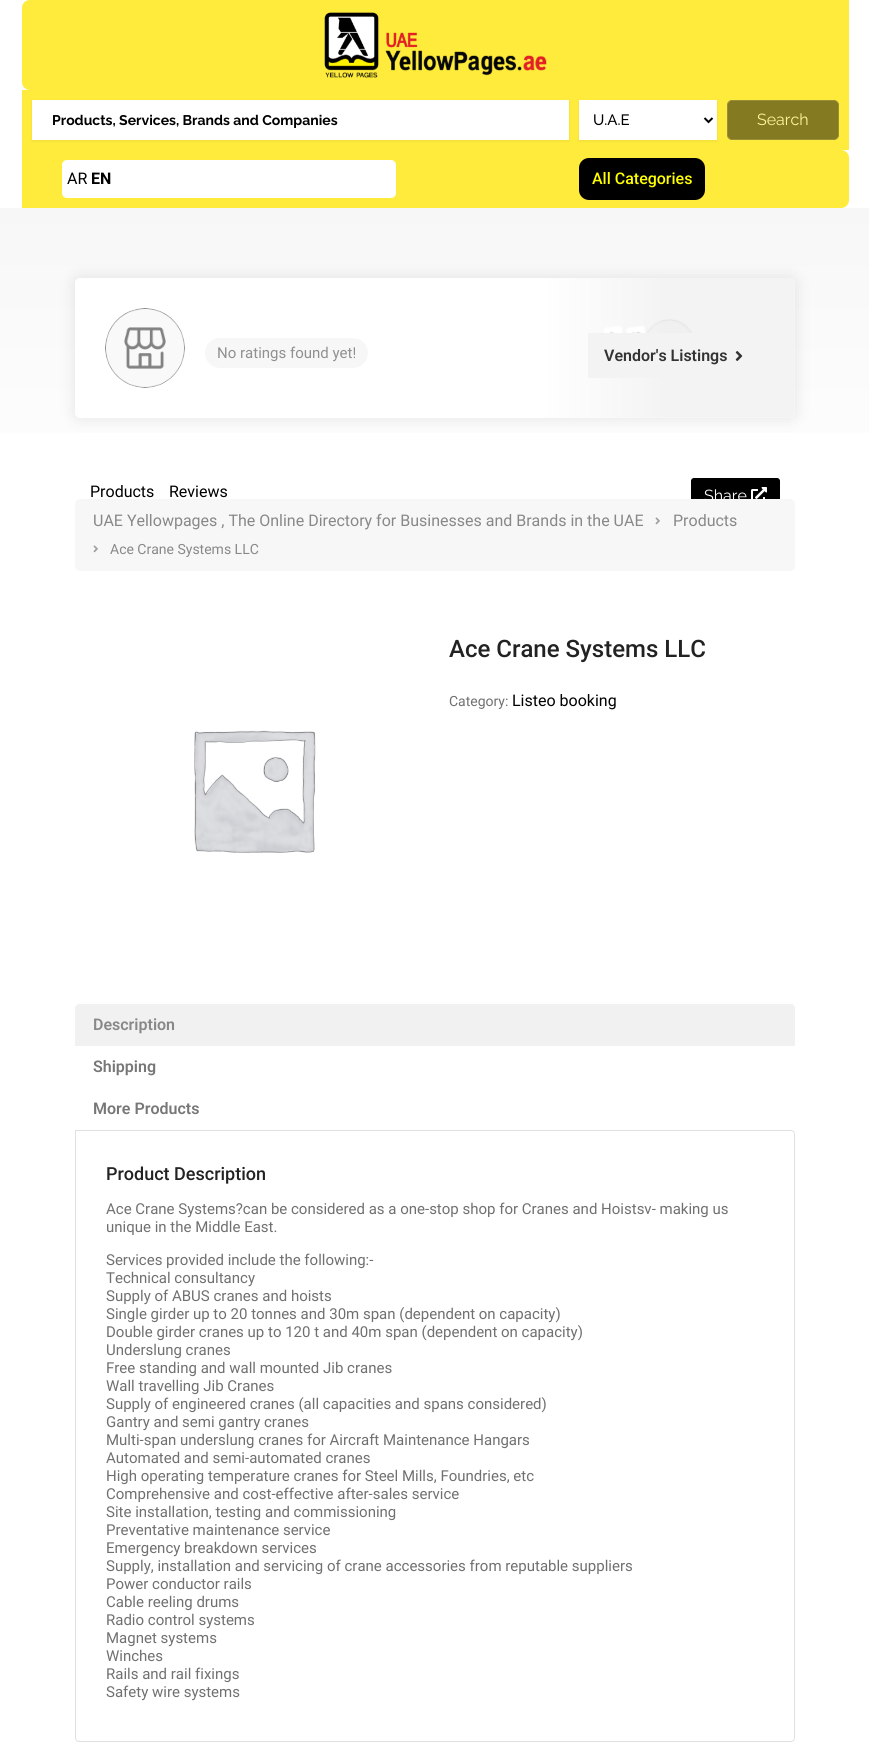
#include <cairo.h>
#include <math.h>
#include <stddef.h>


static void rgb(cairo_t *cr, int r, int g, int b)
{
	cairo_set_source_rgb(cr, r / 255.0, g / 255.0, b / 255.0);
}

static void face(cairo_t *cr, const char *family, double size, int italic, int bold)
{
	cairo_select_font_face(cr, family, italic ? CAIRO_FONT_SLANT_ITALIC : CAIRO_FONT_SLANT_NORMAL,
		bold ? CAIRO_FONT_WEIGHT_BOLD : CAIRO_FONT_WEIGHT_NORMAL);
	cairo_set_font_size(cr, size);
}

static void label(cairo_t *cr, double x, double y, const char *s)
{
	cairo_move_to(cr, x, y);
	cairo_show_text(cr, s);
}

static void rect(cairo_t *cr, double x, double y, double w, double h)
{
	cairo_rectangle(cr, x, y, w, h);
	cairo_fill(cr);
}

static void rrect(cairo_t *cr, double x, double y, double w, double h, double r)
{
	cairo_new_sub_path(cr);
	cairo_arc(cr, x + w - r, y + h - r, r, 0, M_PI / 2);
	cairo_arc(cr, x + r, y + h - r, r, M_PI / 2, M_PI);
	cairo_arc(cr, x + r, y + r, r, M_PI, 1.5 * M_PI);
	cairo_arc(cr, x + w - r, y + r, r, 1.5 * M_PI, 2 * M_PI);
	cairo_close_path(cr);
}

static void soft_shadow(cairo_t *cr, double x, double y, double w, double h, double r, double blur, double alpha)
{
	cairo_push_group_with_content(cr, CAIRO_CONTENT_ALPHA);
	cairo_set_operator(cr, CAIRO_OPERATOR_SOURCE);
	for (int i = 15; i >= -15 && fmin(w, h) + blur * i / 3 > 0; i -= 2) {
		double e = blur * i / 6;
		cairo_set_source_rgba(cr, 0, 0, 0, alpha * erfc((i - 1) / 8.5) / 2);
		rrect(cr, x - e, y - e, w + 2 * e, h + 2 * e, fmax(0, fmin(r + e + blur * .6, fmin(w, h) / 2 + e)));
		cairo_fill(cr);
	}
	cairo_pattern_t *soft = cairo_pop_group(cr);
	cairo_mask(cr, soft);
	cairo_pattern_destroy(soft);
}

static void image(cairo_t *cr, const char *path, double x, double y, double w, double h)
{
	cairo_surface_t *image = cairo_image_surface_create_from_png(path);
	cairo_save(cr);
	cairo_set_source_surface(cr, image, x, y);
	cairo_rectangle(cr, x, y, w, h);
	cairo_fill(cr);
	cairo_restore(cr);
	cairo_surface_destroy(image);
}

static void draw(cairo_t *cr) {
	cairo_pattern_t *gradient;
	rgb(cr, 255, 255, 255);
	cairo_paint(cr);
	rgb(cr, 255, 235, 59);
	cairo_new_path(cr);
	cairo_move_to(cr, 30, 0);
	cairo_line_to(cr, 849, 0);
	cairo_line_to(cr, 849, 90);
	cairo_line_to(cr, 30, 90);
	cairo_curve_to(cr, 25.5, 90, 22, 86.5, 22, 82);
	cairo_line_to(cr, 22, 8);
	cairo_curve_to(cr, 22, 3.5, 25.5, 0, 30, 0);
	cairo_close_path(cr);
	cairo_fill(cr);
	image(cr, "image0.png", 324, 12, 223, 66);
	rect(cr, 22, 90, 827, 60);
	rgb(cr, 0, 0, 0);
	soft_shadow(cr, 32, 101, 537, 40, 0, 1.5, 0.06);
	rgb(cr, 255, 255, 255);
	rect(cr, 32, 100, 537, 40);
	face(cr, "Raleway", 14, 0, 1);
	rgb(cr, 0, 0, 0);
	label(cr, 52, 125, "Products, Services, Brands and Companies");
	rgb(cr, 0, 0, 0);
	soft_shadow(cr, 579, 101, 138, 40, 0, 1.5, 0.06);
	rgb(cr, 255, 255, 255);
	rect(cr, 579, 100, 138, 40);
	cairo_new_path(cr);
	cairo_move_to(cr, 704.5, 118);
	cairo_line_to(cr, 708.5, 122);
	cairo_line_to(cr, 712.5, 118);
	rgb(cr, 0, 0, 0);
	cairo_stroke(cr);
	face(cr, "Raleway Medium", 15, 0, 0);
	label(cr, 593, 125, "U.A.E");
	rgb(cr, 132, 122, 34);
	rrect(cr, 727.5, 100.5, 111, 39, 4.5);
	cairo_fill_preserve(cr);
	rgb(cr, 153, 143, 55);
	cairo_set_line_width(cr, 1);
	cairo_stroke(cr);
	face(cr, "Raleway", 16, 0, 0);
	rgb(cr, 255, 245, 157);
	label(cr, 757, 125, "Search");
	rgb(cr, 255, 235, 59);
	rect(cr, 22, 150, 414, 58);
	rgb(cr, 255, 255, 255);
	rrect(cr, 62, 160, 334, 38, 5);
	cairo_fill(cr);
	face(cr, "Roboto", 16, 0, 0);
	rgb(cr, 0, 0, 0);
	label(cr, 67, 184, "AR");
	face(cr, "Roboto", 16, 0, 1);
	label(cr, 91, 184, "EN");
	rgb(cr, 255, 235, 59);
	cairo_new_path(cr);
	cairo_move_to(cr, 436, 150);
	cairo_line_to(cr, 841, 150);
	cairo_curve_to(cr, 845.5, 150, 849, 153.5, 849, 158);
	cairo_line_to(cr, 849, 200);
	cairo_curve_to(cr, 849, 204.5, 845.5, 208, 841, 208);
	cairo_line_to(cr, 436, 208);
	cairo_close_path(cr);
	cairo_fill(cr);
	rgb(cr, 0, 0, 0);
	rrect(cr, 580.5, 159.5, 123, 39, 8.5);
	cairo_fill_preserve(cr);
	cairo_set_line_width(cr, 3);
	cairo_stroke(cr);
	face(cr, "Roboto Medium", 16, 0, 0);
	rgb(cr, 255, 255, 0);
	label(cr, 592, 184, "All Categories");
	gradient = cairo_pattern_create_linear(435, 208, 435, 535);
	cairo_pattern_add_color_stop_rgba(gradient, 0, 0.969, 0.969, 0.969, 1);
	cairo_pattern_add_color_stop_rgba(gradient, 1, 1, 1, 1, 1);
	cairo_set_source(cr, gradient);
	cairo_pattern_destroy(gradient);
	rect(cr, 0, 208, 869, 225);
	rgb(cr, 0, 0, 0);
	soft_shadow(cr, 75, 278, 720, 140, 5, 8, 0.1);
	rgb(cr, 255, 255, 255);
	rrect(cr, 75, 278, 720, 140, 5);
	cairo_fill(cr);
	image(cr, "image1.png", 105, 308, 80, 80);
	rgb(cr, 247, 247, 247);
	rrect(cr, 205, 338, 163, 30, 15);
	cairo_fill(cr);
	face(cr, "Roboto", 15, 0, 0);
	rgb(cr, 144, 144, 144);
	label(cr, 217, 358, "No ratings found yet!");
	image(cr, "image2.png", 544, 278, 251, 140);
	gradient = cairo_pattern_create_linear(795, 348, 543, 348);
	cairo_pattern_add_color_stop_rgba(gradient, 0.5, 1, 1, 1, 0);
	cairo_pattern_add_color_stop_rgba(gradient, 1, 1, 1, 1, 1);
	cairo_set_source(cr, gradient);
	cairo_pattern_destroy(gradient);
	rect(cr, 544, 278, 117, 140);
	rgb(cr, 243, 243, 243);
	rect(cr, 588, 333, 144, 45);
	face(cr, "Roboto SemiBold", 16, 0, 0);
	rgb(cr, 51, 51, 51);
	label(cr, 604, 361, "Vendor's Listings");
	image(cr, "image3.png", 735, 351, 8, 10);
	face(cr, "Roboto", 16, 0, 0);
	rgb(cr, 0, 0, 0);
	label(cr, 90, 497, "Products");
	label(cr, 169, 497, "Reviews");
	rrect(cr, 691.5, 478.5, 88, 36, 2.5);
	cairo_fill_preserve(cr);
	cairo_set_line_width(cr, 1);
	cairo_stroke(cr);
	face(cr, "Raleway", 16, 0, 0);
	rgb(cr, 255, 255, 255);
	label(cr, 704, 501, "Share");
	image(cr, "image4.png", 751, 487, 16, 12);
	rgb(cr, 247, 247, 247);
	rrect(cr, 75, 499, 720, 72, 5);
	cairo_fill(cr);
	face(cr, "Roboto", 16, 0, 0);
	rgb(cr, 136, 136, 136);
	label(cr, 93, 526, "UAE Yellowpages , The Online Directory for Businesses and Brands in the UAE");
	image(cr, "image5.png", 655, 517, 5, 8);
	label(cr, 673, 526, "Products");
	image(cr, "image5.png", 93, 545, 5, 8);
	face(cr, "Roboto", 14, 0, 0);
	label(cr, 110, 554, "Ace Crane Systems LLC");
	face(cr, "Roboto Medium", 24, 0, 0);
	rgb(cr, 34, 34, 34);
	label(cr, 449, 657, "Ace Crane Systems LLC");
	face(cr, "Roboto", 14, 0, 0);
	rgb(cr, 112, 112, 112);
	label(cr, 449, 706, "Category:");
	face(cr, "Roboto", 16, 0, 0);
	rgb(cr, 0, 0, 0);
	label(cr, 512, 706, "Listeo booking");
	image(cr, "image6.png", 194, 730, 122, 123);
	rgb(cr, 241, 241, 241);
	cairo_new_path(cr);
	cairo_move_to(cr, 79, 1004);
	cairo_line_to(cr, 791, 1004);
	cairo_curve_to(cr, 793, 1004, 795, 1006, 795, 1008);
	cairo_line_to(cr, 795, 1046);
	cairo_line_to(cr, 75, 1046);
	cairo_line_to(cr, 75, 1008);
	cairo_curve_to(cr, 75, 1006, 77, 1004, 79, 1004);
	cairo_close_path(cr);
	cairo_fill(cr);
	face(cr, "Roboto SemiBold", 16, 0, 0);
	rgb(cr, 136, 136, 136);
	label(cr, 93, 1030, "Description");
	rgb(cr, 119, 119, 119);
	label(cr, 93, 1072, "Shipping");
	label(cr, 93, 1114, "More Products");
	cairo_new_path(cr);
	cairo_move_to(cr, 75.5, 1130.5);
	cairo_line_to(cr, 791, 1130.5);
	cairo_curve_to(cr, 793, 1130.5, 794.5, 1132, 794.5, 1134);
	cairo_line_to(cr, 794.5, 1738);
	cairo_curve_to(cr, 794.5, 1740, 793, 1741.5, 791, 1741.5);
	cairo_line_to(cr, 79, 1741.5);
	cairo_curve_to(cr, 77, 1741.5, 75.5, 1740, 75.5, 1738);
	cairo_close_path(cr);
	rgb(cr, 224, 224, 224);
	cairo_stroke(cr);
	face(cr, "Roboto Medium", 18, 0, 0);
	rgb(cr, 34, 34, 34);
	label(cr, 106, 1180, "Product Description");
	face(cr, "Roboto", 15, 0, 0);
	rgb(cr, 112, 112, 112);
	label(cr, 106, 1214, "Ace Crane Systems?can be considered as a one-stop shop for Cranes and Hoistsv- making us");
	label(cr, 106, 1232, "unique in the Middle East.");
	label(cr, 106, 1265, "Services provided include the following:-");
	label(cr, 106, 1283, "Technical consultancy");
	label(cr, 106, 1301, "Supply of ABUS cranes and hoists");
	label(cr, 106, 1319, "Single girder up to 20 tonnes and 30m span (dependent on capacity)");
	label(cr, 106, 1337, "Double girder cranes up to 120 t and 40m span (dependent on capacity)");
	label(cr, 106, 1355, "Underslung cranes");
	label(cr, 106, 1373, "Free standing and wall mounted Jib cranes");
	label(cr, 106, 1391, "Wall travelling Jib Cranes");
	label(cr, 106, 1409, "Supply of engineered cranes (all capacities and spans considered)");
	label(cr, 106, 1427, "Gantry and semi gantry cranes");
	label(cr, 106, 1445, "Multi-span underslung cranes for Aircraft Maintenance Hangars");
	label(cr, 106, 1463, "Automated and semi-automated cranes");
	label(cr, 106, 1481, "High operating temperature cranes for Steel Mills, Foundries, etc");
	label(cr, 106, 1499, "Comprehensive and cost-effective after-sales service");
	label(cr, 106, 1517, "Site installation, testing and commissioning");
	label(cr, 106, 1535, "Preventative maintenance service");
	label(cr, 106, 1553, "Emergency breakdown services");
	label(cr, 106, 1571, "Supply, installation and servicing of crane accessories from reputable suppliers");
	label(cr, 106, 1589, "Power conductor rails");
	label(cr, 106, 1607, "Cable reeling drums");
	label(cr, 106, 1625, "Radio control systems");
	label(cr, 106, 1643, "Magnet systems");
	label(cr, 106, 1661, "Winches");
	label(cr, 106, 1679, "Rails and rail fixings");
	label(cr, 106, 1697, "Safety wire systems");
}

int main(void) {
	cairo_surface_t *surface = cairo_image_surface_create(CAIRO_FORMAT_RGB24, 869, 1746);
	cairo_t *cr = cairo_create(surface);
	cairo_font_options_t *options = cairo_font_options_create();
	cairo_font_options_set_hint_metrics(options, CAIRO_HINT_METRICS_OFF);
	cairo_font_options_set_hint_style(options, CAIRO_HINT_STYLE_NONE);
	cairo_set_font_options(cr, options);
	cairo_set_miter_limit(cr, 4);
	draw(cr);
	cairo_surface_write_to_png(surface, "render.png");
	cairo_font_options_destroy(options);
	cairo_destroy(cr);
	cairo_surface_destroy(surface);
	return 0;
}
